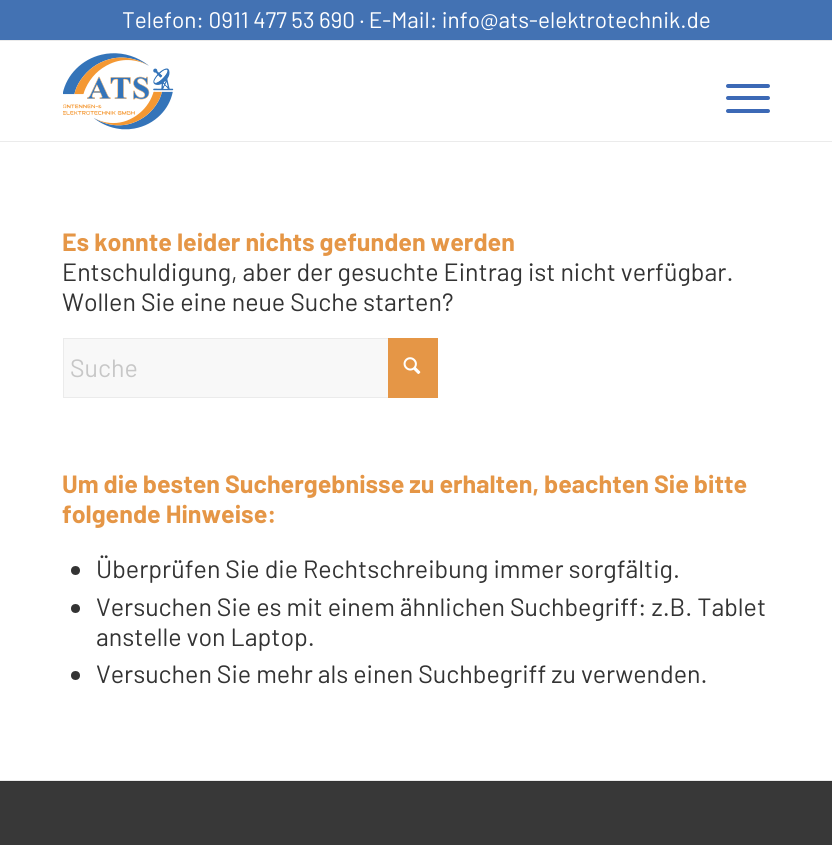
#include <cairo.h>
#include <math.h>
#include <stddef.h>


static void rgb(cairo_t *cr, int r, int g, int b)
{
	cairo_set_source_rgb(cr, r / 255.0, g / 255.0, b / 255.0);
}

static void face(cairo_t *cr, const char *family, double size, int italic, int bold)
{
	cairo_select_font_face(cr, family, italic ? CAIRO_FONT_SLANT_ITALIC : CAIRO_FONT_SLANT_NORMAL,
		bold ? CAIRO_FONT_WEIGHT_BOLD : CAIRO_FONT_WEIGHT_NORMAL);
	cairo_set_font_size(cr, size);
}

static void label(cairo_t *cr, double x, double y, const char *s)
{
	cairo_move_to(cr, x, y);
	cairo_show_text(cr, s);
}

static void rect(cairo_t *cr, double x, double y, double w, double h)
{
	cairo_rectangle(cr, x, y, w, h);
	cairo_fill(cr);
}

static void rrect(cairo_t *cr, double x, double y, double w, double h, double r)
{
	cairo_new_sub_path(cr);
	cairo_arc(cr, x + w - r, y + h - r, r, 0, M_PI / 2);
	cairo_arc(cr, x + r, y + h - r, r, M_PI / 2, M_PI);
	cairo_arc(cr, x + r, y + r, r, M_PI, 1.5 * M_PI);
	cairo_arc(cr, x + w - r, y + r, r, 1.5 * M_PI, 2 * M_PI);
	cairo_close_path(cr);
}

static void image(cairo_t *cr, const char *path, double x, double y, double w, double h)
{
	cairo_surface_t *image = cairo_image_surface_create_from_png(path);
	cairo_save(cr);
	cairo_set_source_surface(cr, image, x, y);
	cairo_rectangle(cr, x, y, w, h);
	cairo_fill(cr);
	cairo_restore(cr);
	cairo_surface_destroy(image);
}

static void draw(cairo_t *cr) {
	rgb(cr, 255, 255, 255);
	cairo_paint(cr);
	rgb(cr, 67, 114, 179);
	rect(cr, 0, 0, 832, 40);
	rgb(cr, 235, 235, 235);
	rect(cr, 0, 40, 832, 1);
	face(cr, "Barlow", 22.5, 0, 0);
	rgb(cr, 255, 255, 255);
	label(cr, 122, 28, "Telefon: 0911 477 53 690 · E-Mail: info@ats-elektrotechnik.de");
	rgb(cr, 235, 235, 235);
	rect(cr, 0, 141, 832, 1);
	image(cr, "image0.png", 63, 53, 111, 77);
	rgb(cr, 60, 105, 182);
	rrect(cr, 726, 96, 44, 4, 2);
	cairo_fill(cr);
	rrect(cr, 726, 84, 44, 4, 2);
	cairo_fill(cr);
	rrect(cr, 726, 109, 44, 4, 2);
	cairo_fill(cr);
	face(cr, "Barlow", 25, 0, 1);
	rgb(cr, 229, 150, 70);
	label(cr, 62, 251, "Es konnte leider nichts gefunden werden");
	face(cr, "Barlow", 25, 0, 0);
	rgb(cr, 51, 51, 51);
	label(cr, 62, 281, "Entschuldigung, aber der gesuchte Eintrag ist nicht verfügbar.");
	label(cr, 62, 311, "Wollen Sie eine neue Suche starten?");
	rgb(cr, 248, 248, 248);
	rect(cr, 64, 339, 324, 58);
	cairo_rectangle(cr, 63.5, 338.5, 374, 59);
	rgb(cr, 235, 235, 235);
	cairo_set_line_width(cr, 1);
	cairo_stroke(cr);
	rgb(cr, 229, 150, 70);
	rect(cr, 388, 338, 50, 60);
	rgb(cr, 199, 199, 199);
	label(cr, 70, 377, "Suche");
	image(cr, "image1.png", 403, 357, 18, 17);
	face(cr, "Barlow", 25, 0, 1);
	rgb(cr, 229, 150, 70);
	label(cr, 62, 493, "Um die besten Suchergebnisse zu erhalten, beachten Sie bitte");
	label(cr, 62, 523, "folgende Hinweise:");
	rgb(cr, 51, 51, 51);
	cairo_new_path(cr);
	cairo_arc(cr, 75.5, 570.5, 4.5, 0, 2 * M_PI);
	cairo_fill(cr);
	face(cr, "Barlow", 25, 0, 0);
	label(cr, 96, 578, "Überprüfen Sie die Rechtschreibung immer sorgfältig.");
	cairo_new_path(cr);
	cairo_arc(cr, 75.5, 608.5, 4.5, 0, 2 * M_PI);
	cairo_fill(cr);
	label(cr, 96, 616, "Versuchen Sie es mit einem ähnlichen Suchbegriff: z.B. Tablet");
	label(cr, 96, 646, "anstelle von Laptop.");
	cairo_new_path(cr);
	cairo_arc(cr, 75.5, 675.5, 4.5, 0, 2 * M_PI);
	cairo_fill(cr);
	label(cr, 96, 683, "Versuchen Sie mehr als einen Suchbegriff zu verwenden.");
	rect(cr, 0, 781, 832, 1);
	rgb(cr, 56, 56, 56);
	rect(cr, 0, 782, 832, 63);
	rgb(cr, 235, 235, 235);
	rect(cr, 0, 780, 832, 1);
}

int main(void) {
	cairo_surface_t *surface = cairo_image_surface_create(CAIRO_FORMAT_RGB24, 832, 845);
	cairo_t *cr = cairo_create(surface);
	cairo_font_options_t *options = cairo_font_options_create();
	cairo_font_options_set_hint_metrics(options, CAIRO_HINT_METRICS_OFF);
	cairo_font_options_set_hint_style(options, CAIRO_HINT_STYLE_NONE);
	cairo_set_font_options(cr, options);
	cairo_set_miter_limit(cr, 4);
	draw(cr);
	cairo_surface_write_to_png(surface, "render.png");
	cairo_font_options_destroy(options);
	cairo_destroy(cr);
	cairo_surface_destroy(surface);
	return 0;
}
